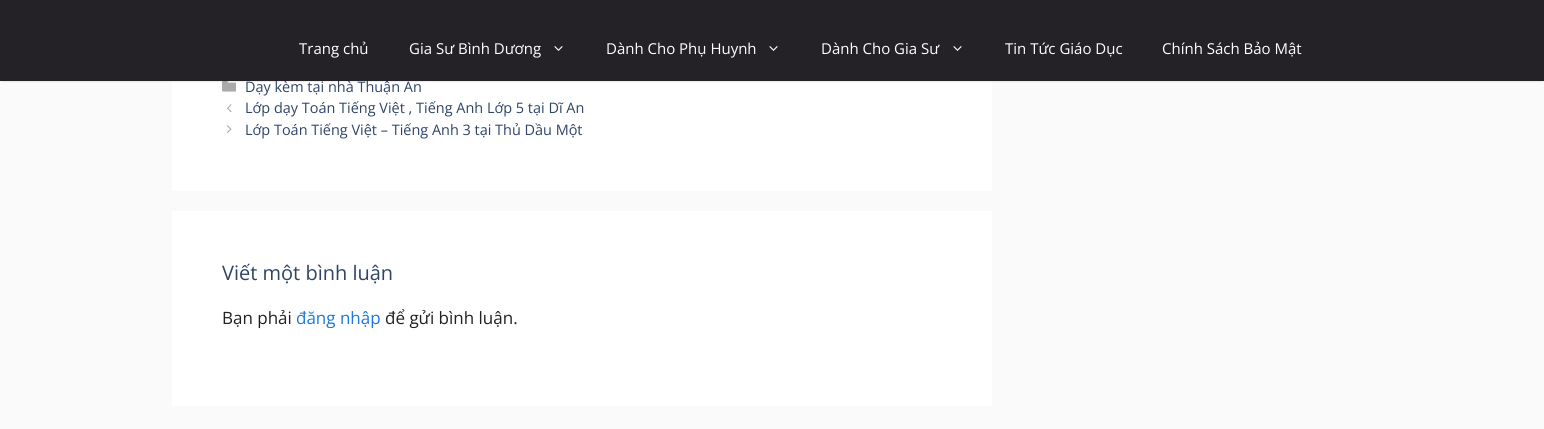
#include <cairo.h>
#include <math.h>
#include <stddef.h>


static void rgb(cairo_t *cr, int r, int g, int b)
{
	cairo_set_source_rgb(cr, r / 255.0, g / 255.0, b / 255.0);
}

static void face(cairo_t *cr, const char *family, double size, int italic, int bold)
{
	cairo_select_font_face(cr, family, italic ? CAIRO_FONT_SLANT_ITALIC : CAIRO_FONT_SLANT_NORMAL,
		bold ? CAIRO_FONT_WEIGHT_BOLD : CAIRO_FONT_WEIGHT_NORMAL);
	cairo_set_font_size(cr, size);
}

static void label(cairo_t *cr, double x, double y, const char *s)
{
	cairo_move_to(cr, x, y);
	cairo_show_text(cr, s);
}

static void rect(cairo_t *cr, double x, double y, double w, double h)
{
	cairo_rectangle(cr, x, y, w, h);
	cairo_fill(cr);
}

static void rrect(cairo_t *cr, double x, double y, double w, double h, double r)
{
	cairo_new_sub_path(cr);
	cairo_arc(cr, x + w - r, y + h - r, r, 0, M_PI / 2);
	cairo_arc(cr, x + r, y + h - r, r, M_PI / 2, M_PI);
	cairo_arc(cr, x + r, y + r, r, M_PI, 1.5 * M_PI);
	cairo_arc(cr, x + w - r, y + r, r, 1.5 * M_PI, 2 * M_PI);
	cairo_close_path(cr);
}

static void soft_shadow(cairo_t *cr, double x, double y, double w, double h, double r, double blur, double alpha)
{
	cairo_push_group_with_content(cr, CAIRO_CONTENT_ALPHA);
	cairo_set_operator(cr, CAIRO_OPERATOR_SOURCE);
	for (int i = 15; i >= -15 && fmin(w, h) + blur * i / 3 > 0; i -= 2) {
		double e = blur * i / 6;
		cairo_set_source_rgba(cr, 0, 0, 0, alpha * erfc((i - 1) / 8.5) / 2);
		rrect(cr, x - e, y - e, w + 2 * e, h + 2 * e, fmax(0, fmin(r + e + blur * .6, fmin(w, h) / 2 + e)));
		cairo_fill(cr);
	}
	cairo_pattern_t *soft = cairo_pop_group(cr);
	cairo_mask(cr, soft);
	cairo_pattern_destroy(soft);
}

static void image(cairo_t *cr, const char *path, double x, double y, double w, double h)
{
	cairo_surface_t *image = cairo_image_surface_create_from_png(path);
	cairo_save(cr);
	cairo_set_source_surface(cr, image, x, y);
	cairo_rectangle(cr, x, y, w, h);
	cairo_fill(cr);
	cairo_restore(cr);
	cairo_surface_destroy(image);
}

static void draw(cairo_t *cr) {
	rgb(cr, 250, 250, 250);
	cairo_paint(cr);
	rgb(cr, 255, 255, 255);
	rect(cr, 172, 81, 820, 110);
	image(cr, "image1.png", 222, 81, 14, 11);
	rgb(cr, 0, 0, 0);
	soft_shadow(cr, 2, -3, 1540, 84, 0, 1, 0.2);
	face(cr, "Open Sans", 14.45, 0, 0);
	rgb(cr, 47, 68, 104);
	label(cr, 245, 92, "Dạy kèm tại nhà Thuận An");
	rgb(cr, 36, 34, 38);
	rect(cr, 0, 0, 1544, 81);
	face(cr, "Open Sans", 15, 0, 0);
	rgb(cr, 255, 255, 255);
	label(cr, 299, 54, "Trang chủ");
	label(cr, 409, 54, "Gia Sư Bình Dương");
	image(cr, "image0.png", 554, 46, 9, 5);
	label(cr, 606, 54, "Dành Cho Phụ Huynh");
	image(cr, "image0.png", 769, 46, 9, 5);
	label(cr, 821, 54, "Dành Cho Gia Sư");
	image(cr, "image0.png", 953, 46, 9, 5);
	label(cr, 1005, 54, "Tin Tức Giáo Dục");
	label(cr, 1162, 54, "Chính Sách Bảo Mật");
	image(cr, "image2.png", 227, 104, 5, 9);
	face(cr, "Open Sans", 14.45, 0, 0);
	rgb(cr, 47, 68, 104);
	label(cr, 245, 113, "Lớp dạy Toán Tiếng Việt , Tiếng Anh Lớp 5 tại Dĩ An");
	image(cr, "image3.png", 227, 125, 5, 9);
	label(cr, 245, 135, "Lớp Toán Tiếng Việt – Tiếng Anh 3 tại Thủ Dầu Một");
	rgb(cr, 255, 255, 255);
	rect(cr, 172, 211, 820, 195);
	face(cr, "Open Sans", 20, 0, 0);
	rgb(cr, 47, 68, 104);
	label(cr, 222, 280, "Viết một bình luận");
	face(cr, "Open Sans", 17, 0, 0);
	rgb(cr, 33, 33, 33);
	label(cr, 222, 324, "Bạn phải");
	rgb(cr, 27, 120, 226);
	label(cr, 296, 324, "đăng nhập");
	rgb(cr, 33, 33, 33);
	label(cr, 385, 324, "để gửi bình luận.");
}

int main(void) {
	cairo_surface_t *surface = cairo_image_surface_create(CAIRO_FORMAT_RGB24, 1544, 429);
	cairo_t *cr = cairo_create(surface);
	cairo_font_options_t *options = cairo_font_options_create();
	cairo_font_options_set_hint_metrics(options, CAIRO_HINT_METRICS_OFF);
	cairo_font_options_set_hint_style(options, CAIRO_HINT_STYLE_NONE);
	cairo_set_font_options(cr, options);
	cairo_set_miter_limit(cr, 4);
	draw(cr);
	cairo_surface_write_to_png(surface, "render.png");
	cairo_font_options_destroy(options);
	cairo_destroy(cr);
	cairo_surface_destroy(surface);
	return 0;
}
